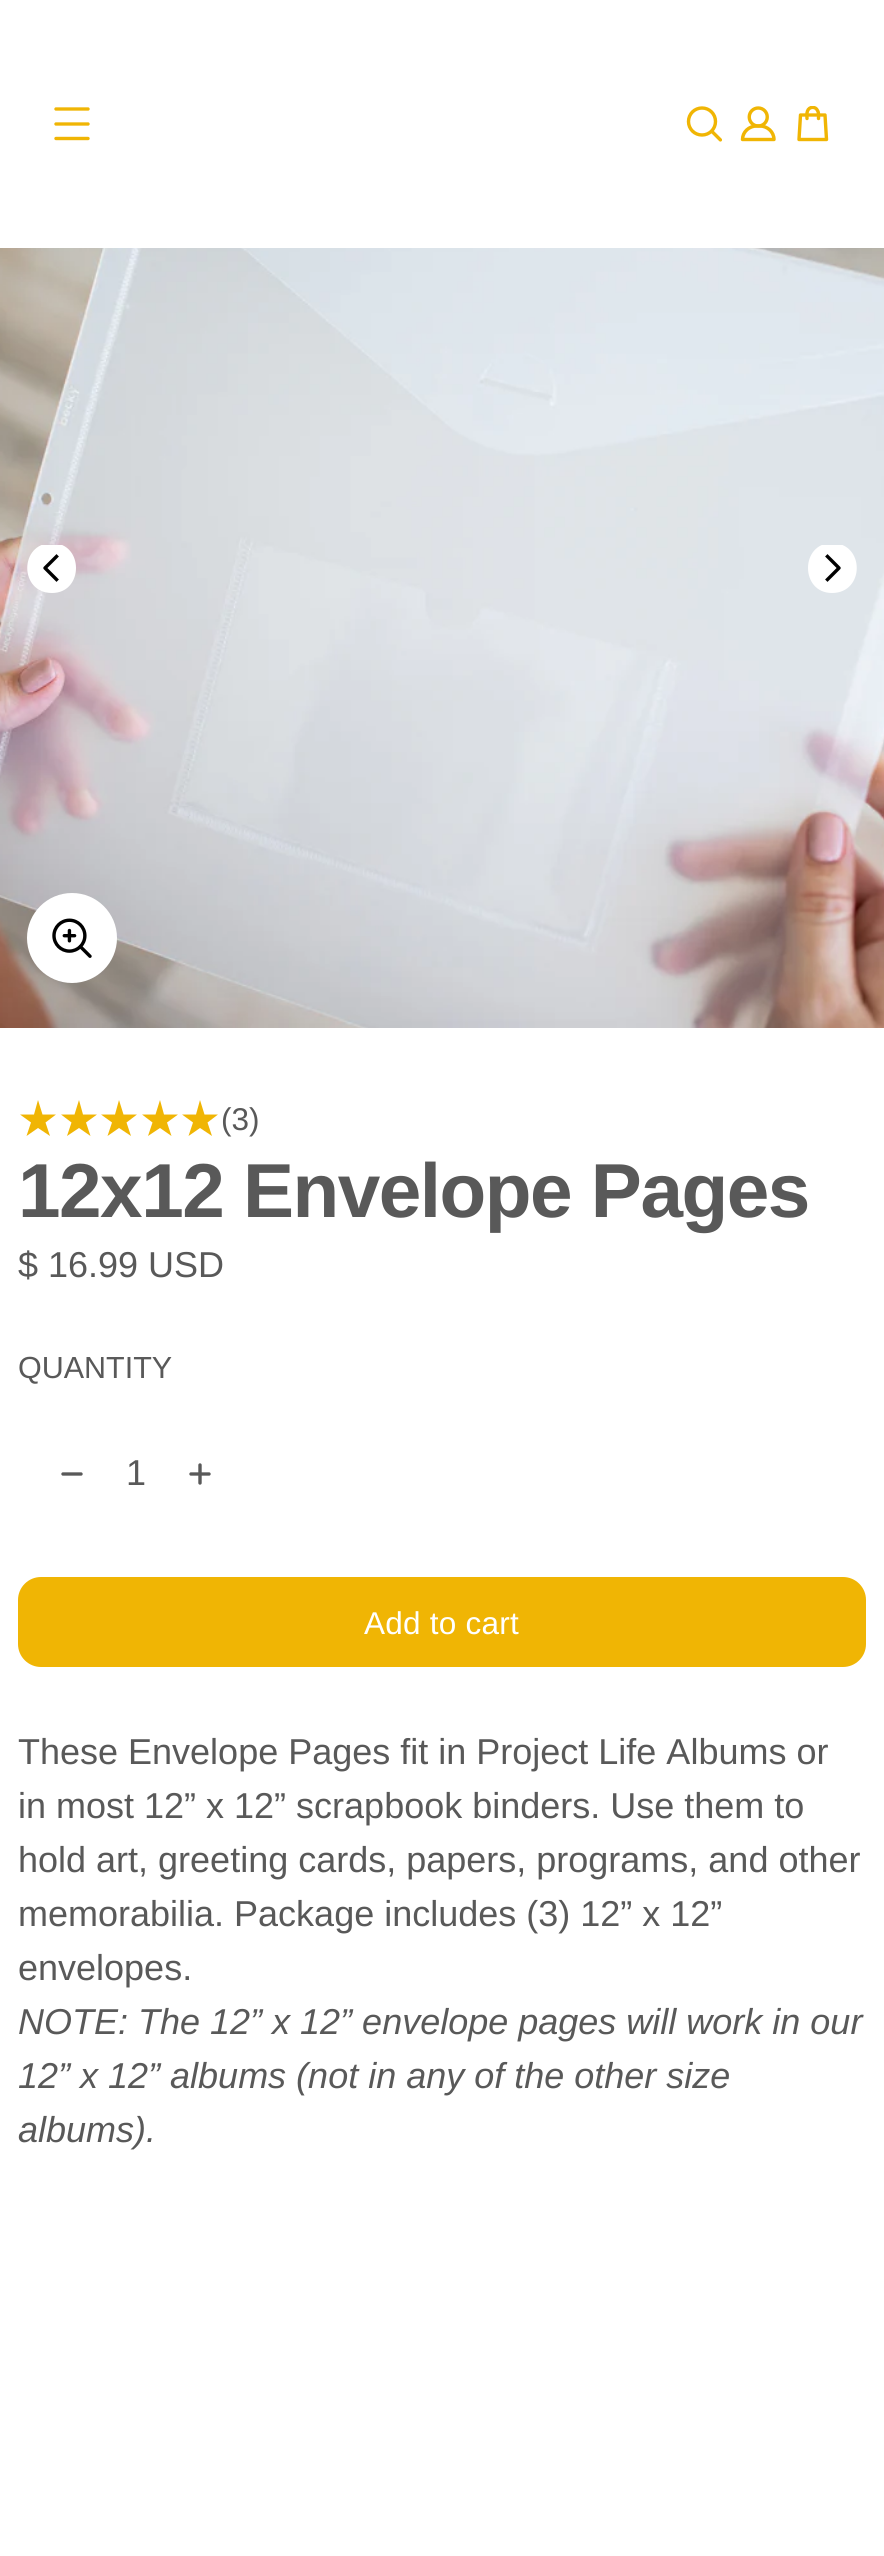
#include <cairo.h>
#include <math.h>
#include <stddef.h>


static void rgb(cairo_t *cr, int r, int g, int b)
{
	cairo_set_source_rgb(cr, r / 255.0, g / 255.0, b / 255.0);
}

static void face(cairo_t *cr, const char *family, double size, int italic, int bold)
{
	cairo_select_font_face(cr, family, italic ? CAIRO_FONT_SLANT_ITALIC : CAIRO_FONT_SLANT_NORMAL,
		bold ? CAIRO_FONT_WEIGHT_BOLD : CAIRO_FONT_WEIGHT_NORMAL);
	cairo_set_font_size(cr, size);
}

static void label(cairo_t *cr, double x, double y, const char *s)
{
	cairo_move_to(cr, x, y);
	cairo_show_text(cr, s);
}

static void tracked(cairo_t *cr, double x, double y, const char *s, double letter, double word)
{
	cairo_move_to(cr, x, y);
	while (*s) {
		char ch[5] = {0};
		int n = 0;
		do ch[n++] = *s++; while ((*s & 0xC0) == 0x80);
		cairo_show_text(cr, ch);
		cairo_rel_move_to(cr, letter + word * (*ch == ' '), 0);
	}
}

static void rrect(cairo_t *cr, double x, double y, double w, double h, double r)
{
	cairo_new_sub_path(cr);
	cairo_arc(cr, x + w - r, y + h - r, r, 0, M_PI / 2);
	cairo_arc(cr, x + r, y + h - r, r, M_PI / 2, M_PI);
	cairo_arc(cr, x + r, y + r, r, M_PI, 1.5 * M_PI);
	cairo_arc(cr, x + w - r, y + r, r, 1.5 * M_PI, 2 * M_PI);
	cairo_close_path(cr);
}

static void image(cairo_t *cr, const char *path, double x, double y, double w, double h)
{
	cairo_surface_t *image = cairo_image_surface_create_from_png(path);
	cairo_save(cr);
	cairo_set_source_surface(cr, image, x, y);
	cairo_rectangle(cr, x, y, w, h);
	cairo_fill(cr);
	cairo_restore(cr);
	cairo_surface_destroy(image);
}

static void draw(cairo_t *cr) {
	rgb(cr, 255, 255, 255);
	cairo_paint(cr);
	cairo_new_path(cr);
	cairo_move_to(cr, 56, 124);
	cairo_line_to(cr, 88, 124);
	cairo_move_to(cr, 56, 109);
	cairo_line_to(cr, 88, 109);
	cairo_move_to(cr, 56, 138.5);
	cairo_line_to(cr, 88, 138.5);
	rgb(cr, 240, 181, 4);
	cairo_set_line_width(cr, 3.4);
	cairo_set_line_cap(cr, CAIRO_LINE_CAP_ROUND);
	cairo_set_line_join(cr, CAIRO_LINE_JOIN_ROUND);
	cairo_stroke(cr);
	image(cr, "image0.png", 686, 106, 36, 36);
	image(cr, "image1.png", 740, 106, 36, 36);
	cairo_save(cr);
	cairo_rectangle(cr, 794, 106, 36, 36);
	cairo_clip(cr);
	cairo_new_path(cr);
	cairo_move_to(cr, 807, 118.5);
	cairo_curve_to(cr, 807, 116.5, 806.5, 113.5, 807.5, 111);
	cairo_curve_to(cr, 809, 106.5, 815.5, 106, 817.5, 110.5);
	cairo_curve_to(cr, 819, 113, 818.5, 116, 818.5, 118.5);
	cairo_stroke(cr);
	cairo_restore(cr);
	cairo_new_path(cr);
	cairo_move_to(cr, 826.5, 139.5);
	cairo_line_to(cr, 799, 139.5);
	cairo_line_to(cr, 800.5, 115);
	cairo_line_to(cr, 825, 115);
	cairo_close_path(cr);
	cairo_stroke(cr);
	image(cr, "image2.png", 0, 248, 884, 780);
	cairo_save(cr);
	cairo_rectangle(cr, 27, 545, 50, 49);
	cairo_clip(cr);
	rgb(cr, 255, 255, 255);
	cairo_new_path(cr);
	cairo_move_to(cr, 52, 593);
	cairo_curve_to(cr, 84, 593, 84, 543, 52, 543);
	cairo_curve_to(cr, 19, 543, 19, 593, 52, 593);
	cairo_close_path(cr);
	cairo_fill(cr);
	cairo_restore(cr);
	cairo_new_path(cr);
	cairo_move_to(cr, 56.5, 556.5);
	cairo_line_to(cr, 45, 568);
	cairo_line_to(cr, 56.5, 579.5);
	rgb(cr, 0, 0, 0);
	cairo_set_line_cap(cr, CAIRO_LINE_CAP_SQUARE);
	cairo_stroke(cr);
	cairo_save(cr);
	cairo_rectangle(cr, 808, 545, 49, 49);
	cairo_clip(cr);
	rgb(cr, 255, 255, 255);
	cairo_new_path(cr);
	cairo_move_to(cr, 832, 593);
	cairo_curve_to(cr, 865, 593, 865, 543, 832, 543);
	cairo_curve_to(cr, 800, 543, 800, 593, 832, 593);
	cairo_close_path(cr);
	cairo_fill(cr);
	cairo_restore(cr);
	cairo_new_path(cr);
	cairo_move_to(cr, 827.5, 556.5);
	cairo_line_to(cr, 839, 568);
	cairo_line_to(cr, 827.5, 579.5);
	cairo_stroke(cr);
	rgb(cr, 255, 255, 255);
	cairo_arc(cr, 72, 938, 45, 0, 2 * M_PI);
	cairo_fill(cr);
	image(cr, "image3.png", 52, 918, 40, 40);
	rgb(cr, 240, 181, 4);
	cairo_new_path(cr);
	cairo_move_to(cr, 42.5, 1114.5);
	cairo_line_to(cr, 38, 1100);
	cairo_line_to(cr, 34, 1114.5);
	cairo_line_to(cr, 20, 1114.5);
	cairo_line_to(cr, 31, 1122.5);
	cairo_line_to(cr, 26.5, 1136);
	cairo_line_to(cr, 38, 1128);
	cairo_line_to(cr, 50, 1136);
	cairo_line_to(cr, 45.5, 1122.5);
	cairo_line_to(cr, 56, 1114.5);
	cairo_close_path(cr);
	cairo_fill(cr);
	cairo_new_path(cr);
	cairo_move_to(cr, 83, 1114.5);
	cairo_line_to(cr, 79, 1100);
	cairo_line_to(cr, 74.5, 1114.5);
	cairo_line_to(cr, 61, 1114.5);
	cairo_line_to(cr, 71.5, 1122.5);
	cairo_line_to(cr, 67, 1136);
	cairo_line_to(cr, 79, 1128);
	cairo_line_to(cr, 90.5, 1136);
	cairo_line_to(cr, 86, 1122.5);
	cairo_line_to(cr, 97, 1114.5);
	cairo_close_path(cr);
	cairo_fill(cr);
	cairo_new_path(cr);
	cairo_move_to(cr, 123.5, 1114.5);
	cairo_line_to(cr, 119, 1100);
	cairo_line_to(cr, 115, 1114.5);
	cairo_line_to(cr, 101, 1114.5);
	cairo_line_to(cr, 112, 1122.5);
	cairo_line_to(cr, 107.5, 1136);
	cairo_line_to(cr, 119, 1128);
	cairo_line_to(cr, 131, 1136);
	cairo_line_to(cr, 126.5, 1122.5);
	cairo_line_to(cr, 137, 1114.5);
	cairo_close_path(cr);
	cairo_fill(cr);
	cairo_new_path(cr);
	cairo_move_to(cr, 164, 1114.5);
	cairo_line_to(cr, 160, 1100);
	cairo_line_to(cr, 155.5, 1114.5);
	cairo_line_to(cr, 142, 1114.5);
	cairo_line_to(cr, 152.5, 1122.5);
	cairo_line_to(cr, 148, 1136);
	cairo_line_to(cr, 160, 1128);
	cairo_line_to(cr, 171.5, 1136);
	cairo_line_to(cr, 167, 1122.5);
	cairo_line_to(cr, 178, 1114.5);
	cairo_close_path(cr);
	cairo_fill(cr);
	cairo_new_path(cr);
	cairo_move_to(cr, 204.5, 1114.5);
	cairo_line_to(cr, 200, 1100);
	cairo_line_to(cr, 196, 1114.5);
	cairo_line_to(cr, 182, 1114.5);
	cairo_line_to(cr, 193, 1122.5);
	cairo_line_to(cr, 188.5, 1136);
	cairo_line_to(cr, 200, 1128);
	cairo_line_to(cr, 212, 1136);
	cairo_line_to(cr, 207.5, 1122.5);
	cairo_line_to(cr, 218, 1114.5);
	cairo_close_path(cr);
	cairo_fill(cr);
	face(cr, "Liberation Sans", 31.5, 0, 0);
	rgb(cr, 89, 89, 89);
	label(cr, 221, 1130, "(3)");
	face(cr, "Liberation Sans", 76.5, 0, 1);
	tracked(cr, 18, 1217, "12x12 Envelope Pages", -1.5, 0);
	face(cr, "Liberation Sans", 36, 0, 0);
	label(cr, 18, 1277, "$ 16.99 USD");
	face(cr, "Liberation Sans", 30.5, 0, 0);
	label(cr, 18, 1378, "QUANTITY");
	cairo_new_path(cr);
	cairo_move_to(cr, 81, 1474);
	cairo_line_to(cr, 63, 1474);
	cairo_set_line_cap(cr, CAIRO_LINE_CAP_ROUND);
	cairo_stroke(cr);
	face(cr, "Liberation Sans", 36, 0, 0);
	label(cr, 126, 1485, "1");
	cairo_new_path(cr);
	cairo_move_to(cr, 200, 1483);
	cairo_line_to(cr, 200, 1465);
	cairo_move_to(cr, 209, 1474);
	cairo_line_to(cr, 191, 1474);
	cairo_stroke(cr);
	rgb(cr, 240, 181, 4);
	rrect(cr, 18, 1577, 848, 90, 23);
	cairo_fill(cr);
	face(cr, "Liberation Sans", 31.5, 0, 0);
	rgb(cr, 255, 255, 255);
	tracked(cr, 364, 1634, "Add to cart", 0.25, 0);
	face(cr, "Liberation Sans", 36, 0, 0);
	rgb(cr, 89, 89, 89);
	label(cr, 18, 1764, "These Envelope Pages fit in Project Life Albums or");
	label(cr, 18, 1818, "in most 12” x 12” scrapbook binders. Use them to");
	label(cr, 18, 1872, "hold art, greeting cards, papers, programs, and other");
	label(cr, 18, 1926, "memorabilia. Package includes (3) 12” x 12”");
	label(cr, 18, 1980, "envelopes.");
	face(cr, "Liberation Sans", 36, 1, 0);
	label(cr, 18, 2034, "NOTE: The 12” x 12” envelope pages will work in our");
	label(cr, 18, 2088, "12” x 12” albums (not in any of the other size");
	label(cr, 18, 2142, "albums).");
}

int main(void) {
	cairo_surface_t *surface = cairo_image_surface_create(CAIRO_FORMAT_RGB24, 884, 2556);
	cairo_t *cr = cairo_create(surface);
	cairo_font_options_t *options = cairo_font_options_create();
	cairo_font_options_set_hint_metrics(options, CAIRO_HINT_METRICS_OFF);
	cairo_font_options_set_hint_style(options, CAIRO_HINT_STYLE_NONE);
	cairo_set_font_options(cr, options);
	cairo_set_miter_limit(cr, 4);
	draw(cr);
	cairo_surface_write_to_png(surface, "render.png");
	cairo_font_options_destroy(options);
	cairo_destroy(cr);
	cairo_surface_destroy(surface);
	return 0;
}
